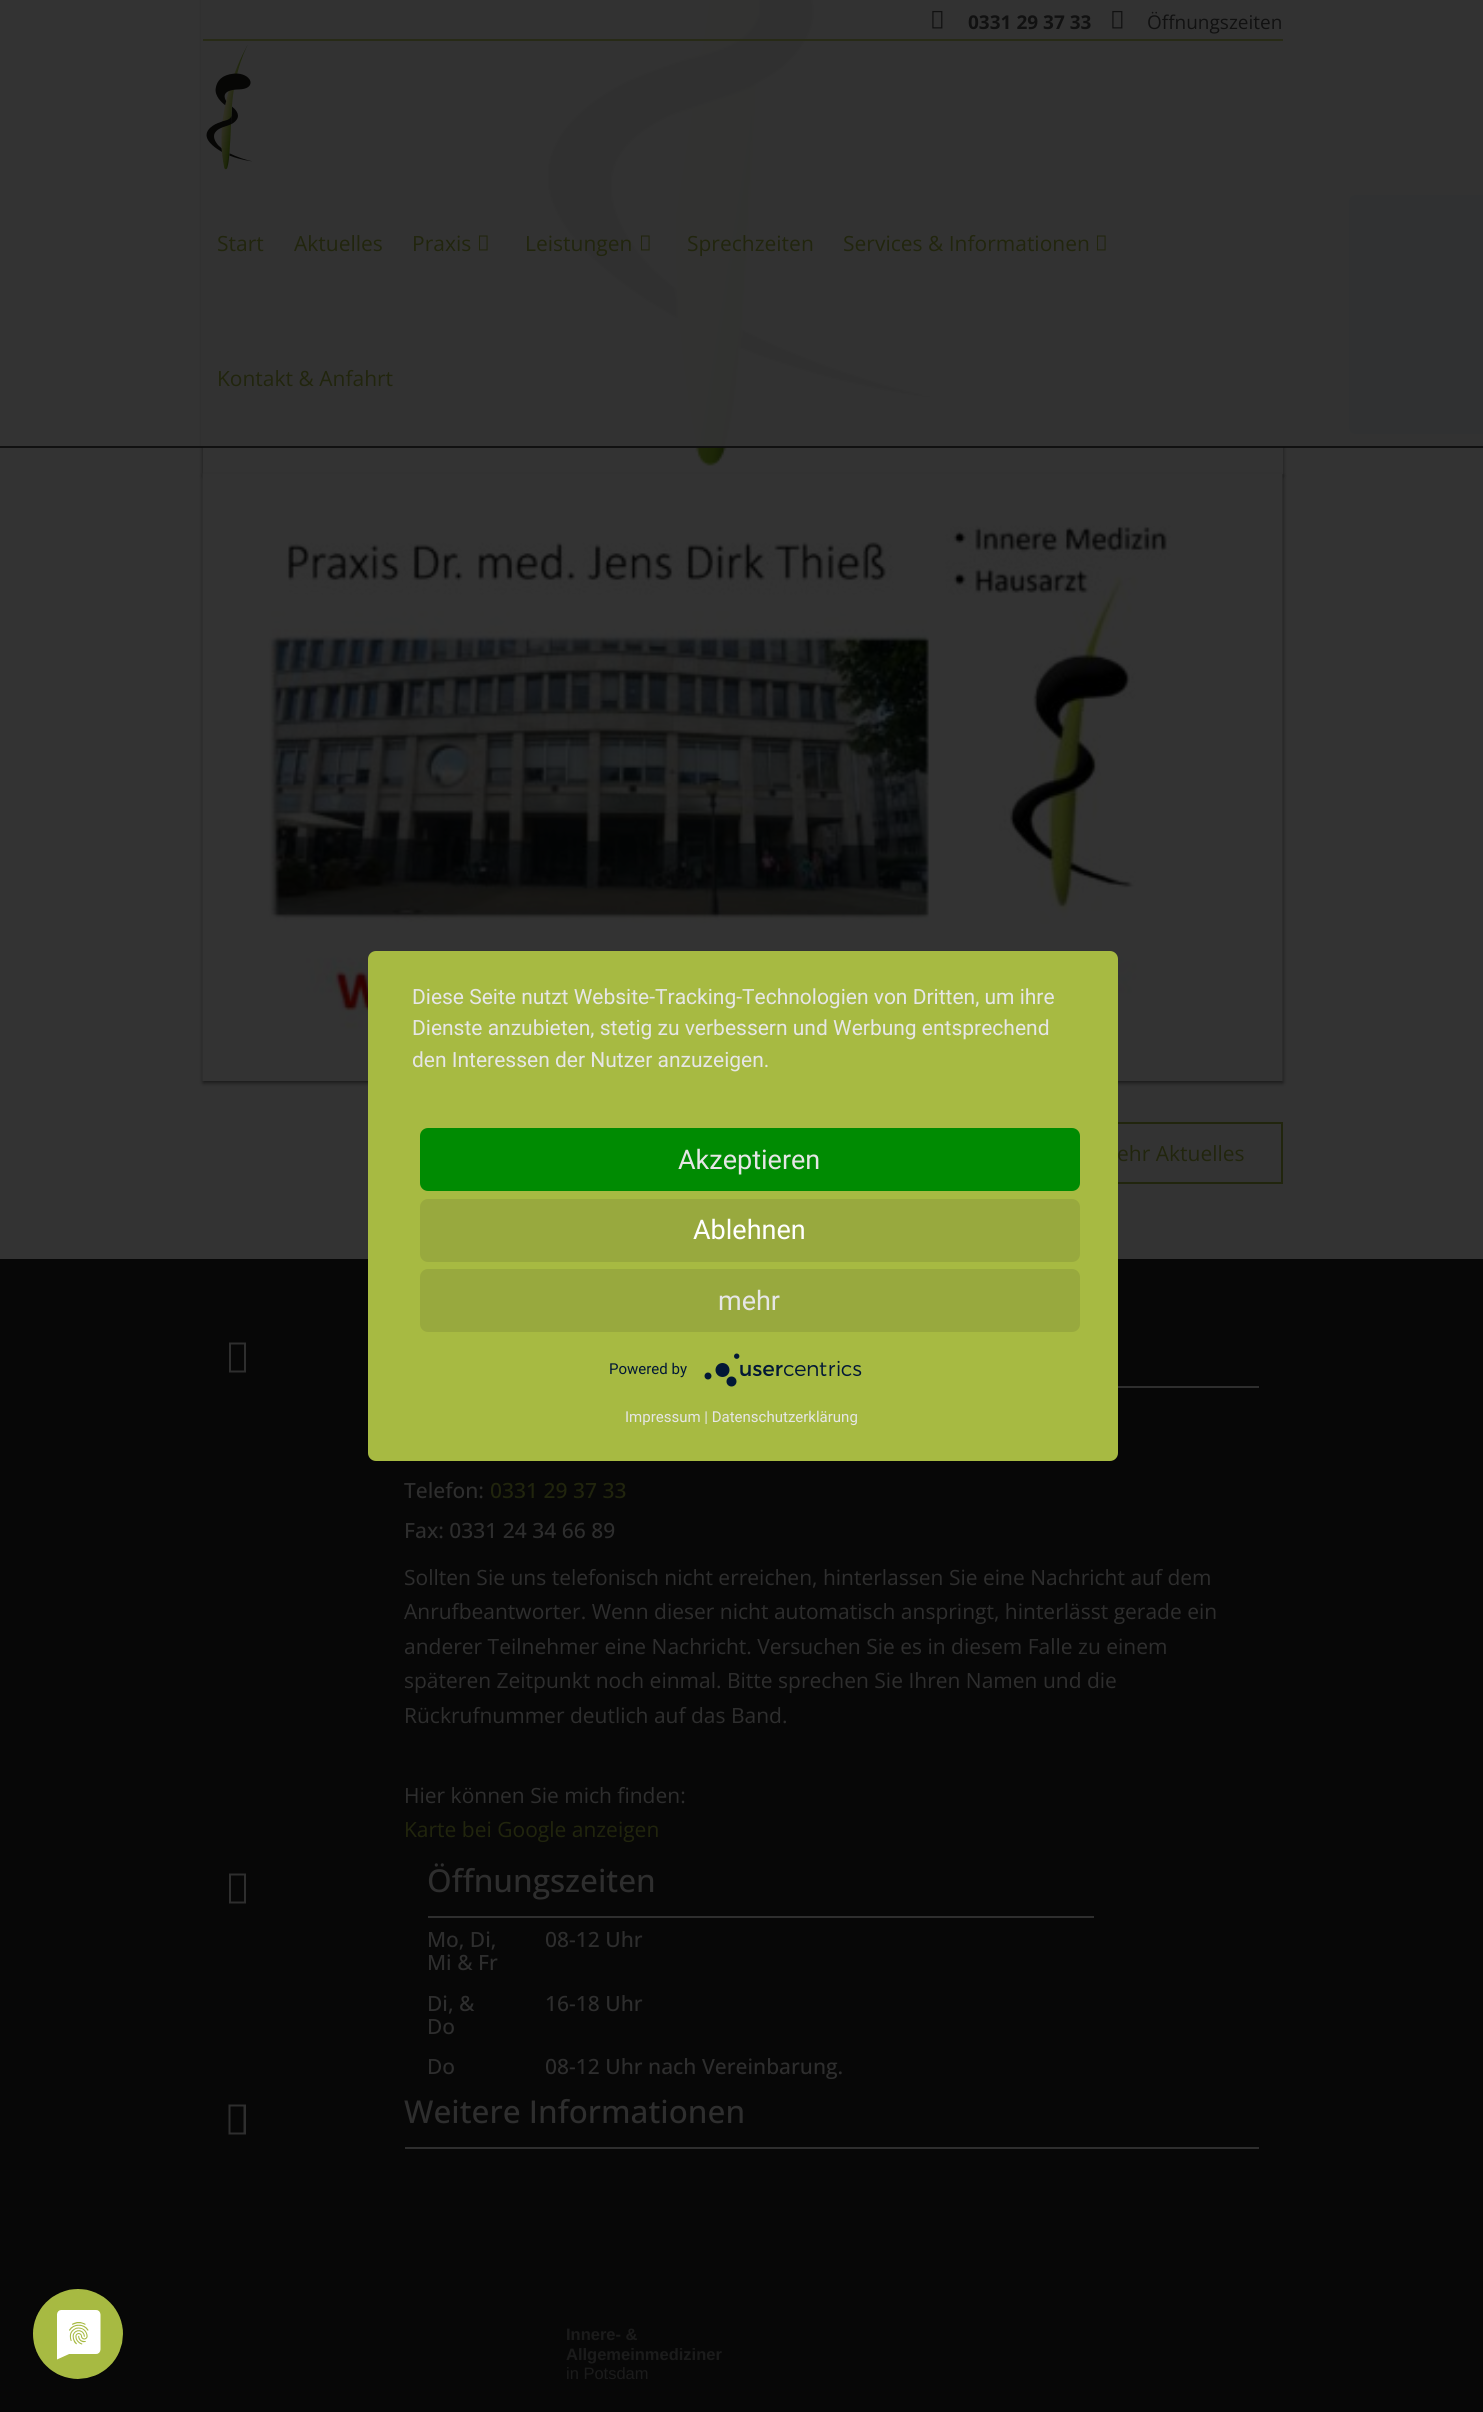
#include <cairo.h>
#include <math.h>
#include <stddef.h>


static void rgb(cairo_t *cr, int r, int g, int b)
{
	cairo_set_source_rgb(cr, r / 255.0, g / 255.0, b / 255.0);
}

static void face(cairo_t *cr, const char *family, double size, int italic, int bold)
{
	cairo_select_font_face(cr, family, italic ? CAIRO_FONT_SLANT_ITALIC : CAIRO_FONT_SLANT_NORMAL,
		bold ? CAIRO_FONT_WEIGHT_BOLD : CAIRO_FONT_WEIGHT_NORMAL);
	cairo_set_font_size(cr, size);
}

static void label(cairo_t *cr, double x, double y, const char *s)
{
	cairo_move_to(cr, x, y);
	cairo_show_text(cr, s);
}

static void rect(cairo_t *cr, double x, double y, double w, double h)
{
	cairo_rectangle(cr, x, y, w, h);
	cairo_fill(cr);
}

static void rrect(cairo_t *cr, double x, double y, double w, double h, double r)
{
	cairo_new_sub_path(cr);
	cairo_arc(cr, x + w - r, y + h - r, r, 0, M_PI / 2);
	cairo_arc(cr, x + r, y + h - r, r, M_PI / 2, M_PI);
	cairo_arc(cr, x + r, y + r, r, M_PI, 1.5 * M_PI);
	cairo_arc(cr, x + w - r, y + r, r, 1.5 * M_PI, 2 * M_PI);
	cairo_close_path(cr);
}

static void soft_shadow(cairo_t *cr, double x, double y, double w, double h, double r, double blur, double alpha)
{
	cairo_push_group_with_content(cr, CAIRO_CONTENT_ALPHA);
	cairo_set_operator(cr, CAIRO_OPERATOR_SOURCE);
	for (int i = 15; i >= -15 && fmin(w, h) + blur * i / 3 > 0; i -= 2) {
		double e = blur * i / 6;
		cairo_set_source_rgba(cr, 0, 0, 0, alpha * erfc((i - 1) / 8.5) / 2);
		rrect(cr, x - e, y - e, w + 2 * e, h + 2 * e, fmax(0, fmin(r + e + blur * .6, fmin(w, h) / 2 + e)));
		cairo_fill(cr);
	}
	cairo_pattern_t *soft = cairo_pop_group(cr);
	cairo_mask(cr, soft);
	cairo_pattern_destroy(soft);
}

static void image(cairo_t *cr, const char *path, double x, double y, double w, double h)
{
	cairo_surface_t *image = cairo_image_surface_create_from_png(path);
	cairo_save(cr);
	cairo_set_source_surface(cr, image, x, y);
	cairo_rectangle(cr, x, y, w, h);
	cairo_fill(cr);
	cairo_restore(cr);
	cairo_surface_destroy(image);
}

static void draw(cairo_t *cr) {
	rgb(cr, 51, 51, 51);
	cairo_paint(cr);
	rgb(cr, 1, 30, 44);
	cairo_new_path(cr);
	cairo_move_to(cr, 1355, 195);
	cairo_line_to(cr, 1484, 195);
	cairo_line_to(cr, 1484, 434);
	cairo_line_to(cr, 1355, 434);
	cairo_curve_to(cr, 1351.5, 434, 1349, 431.5, 1349, 428);
	cairo_line_to(cr, 1349, 201);
	cairo_curve_to(cr, 1349, 197.5, 1351.5, 195, 1355, 195);
	cairo_close_path(cr);
	cairo_fill(cr);
	cairo_save(cr);
	cairo_set_fill_rule(cr, CAIRO_FILL_RULE_EVEN_ODD);
	cairo_new_path(cr);
	cairo_move_to(cr, 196, 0);
	cairo_line_to(cr, 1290, 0);
	cairo_line_to(cr, 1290, 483);
	cairo_line_to(cr, 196, 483);
	cairo_close_path(cr);
	cairo_move_to(cr, 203, -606);
	cairo_line_to(cr, 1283, -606);
	cairo_line_to(cr, 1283, 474);
	cairo_line_to(cr, 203, 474);
	cairo_close_path(cr);
	cairo_clip(cr);
	rgb(cr, 0, 0, 0);
	soft_shadow(cr, 203, -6, 1080, 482, 0, 2, 0.5);
	cairo_restore(cr);
	image(cr, "image3.png", 545, 0, 392, 466);
	cairo_set_source_rgba(cr, 0.2, 0.2, 0.2, 0.95);
	rect(cr, 201, 0, 1282, 447);
	cairo_set_source_rgba(cr, 0.055, 0.055, 0.055, 0.9);
	rect(cr, 0, 446, 1483, 2);
	rgb(cr, 39, 42, 22);
	rect(cr, 203, 39, 1080, 2);
	image(cr, "image0.png", 932, 10, 11, 19);
	face(cr, "Open Sans", 19, 0, 1);
	rgb(cr, 17, 17, 17);
	label(cr, 968, 29, "0331 29 37 33");
	image(cr, "image0.png", 1112, 10, 11, 19);
	face(cr, "Open Sans", 19, 0, 0);
	label(cr, 1147, 29, "Öffnungszeiten");
	image(cr, "image1.png", 206, 45, 46, 125);
	face(cr, "Open Sans", 21, 0, 0);
	rgb(cr, 33, 37, 13);
	label(cr, 217, 251, "Start");
	label(cr, 294, 251, "Aktuelles");
	label(cr, 412, 251, "Praxis");
	image(cr, "image2.png", 478, 235, 10, 16);
	label(cr, 525, 251, "Leistungen");
	image(cr, "image2.png", 640, 235, 10, 16);
	label(cr, 687, 251, "Sprechzeiten");
	label(cr, 843, 251, "Services & Informationen");
	image(cr, "image2.png", 1096, 235, 10, 16);
	label(cr, 217, 386, "Kontakt & Anfahrt");
	rgb(cr, 0, 0, 0);
	soft_shadow(cr, 203, 476, 1080, 607, 0, 2, 0.5);
	image(cr, "image4.png", 202, 473, 1081, 608);
	cairo_rectangle(cr, 1045, 1123, 237, 60);
	rgb(cr, 33, 37, 13);
	cairo_stroke(cr);
	label(cr, 1117, 1161, "ehr Aktuelles");
	rgb(cr, 7, 7, 7);
	rect(cr, 0, 1259, 1483, 1153);
	rgb(cr, 46, 46, 46);
	cairo_new_path(cr);
	cairo_move_to(cr, 229, 1372.5);
	cairo_line_to(cr, 229, 1342.5);
	cairo_line_to(cr, 246, 1342.5);
	cairo_line_to(cr, 246, 1372.5);
	cairo_close_path(cr);
	cairo_move_to(cr, 231, 1370.5);
	cairo_line_to(cr, 244, 1370.5);
	cairo_line_to(cr, 244, 1344.5);
	cairo_line_to(cr, 231, 1344.5);
	cairo_close_path(cr);
	cairo_fill(cr);
	rect(cr, 1118, 1386, 141, 2);
	face(cr, "Open Sans Medium", 21, 0, 0);
	label(cr, 404, 1498, "Telefon:");
	rgb(cr, 33, 37, 13);
	label(cr, 490, 1498, "0331 29 37 33");
	rgb(cr, 46, 46, 46);
	label(cr, 404, 1538, "Fax: 0331 24 34 66 89");
	face(cr, "Open Sans", 21, 0, 0);
	label(cr, 404, 1585, "Sollten Sie uns telefonisch nicht erreichen, hinterlassen Sie eine Nachricht auf dem");
	label(cr, 404, 1619, "Anrufbeantworter. Wenn dieser nicht automatisch anspringt, hinterlässt gerade ein");
	label(cr, 404, 1654, "anderer Teilnehmer eine Nachricht. Versuchen Sie es in diesem Falle zu einem");
	label(cr, 404, 1688, "späteren Zeitpunkt noch einmal. Bitte sprechen Sie Ihren Namen und die");
	label(cr, 404, 1723, "Rückrufnummer deutlich auf das Band.");
	label(cr, 404, 1803, "Hier können Sie mich finden:");
	rgb(cr, 33, 37, 13);
	label(cr, 404, 1837, "Karte bei Google anzeigen");
	rgb(cr, 46, 46, 46);
	cairo_new_path(cr);
	cairo_move_to(cr, 229, 1903.5);
	cairo_line_to(cr, 229, 1873.5);
	cairo_line_to(cr, 246, 1873.5);
	cairo_line_to(cr, 246, 1903.5);
	cairo_close_path(cr);
	cairo_move_to(cr, 231, 1901.5);
	cairo_line_to(cr, 244, 1901.5);
	cairo_line_to(cr, 244, 1875.5);
	cairo_line_to(cr, 231, 1875.5);
	cairo_close_path(cr);
	cairo_fill(cr);
	face(cr, "Open Sans Medium", 31.5, 0, 0);
	label(cr, 427, 1892, "Öffnungszeiten");
	rect(cr, 428, 1916, 666, 2);
	face(cr, "Open Sans Medium", 21, 0, 0);
	label(cr, 427, 1947, "Mo, Di,");
	label(cr, 427, 1970, "Mi & Fr");
	label(cr, 545, 1947, "08-12 Uhr");
	label(cr, 427, 2011, "Di, &");
	label(cr, 427, 2034, "Do");
	label(cr, 545, 2011, "16-18 Uhr");
	label(cr, 427, 2074, "Do");
	label(cr, 545, 2074, "08-12 Uhr nach Vereinbarung.");
	cairo_new_path(cr);
	cairo_move_to(cr, 228.5, 2134.5);
	cairo_line_to(cr, 228.5, 2104.5);
	cairo_line_to(cr, 246, 2104.5);
	cairo_line_to(cr, 246, 2134.5);
	cairo_close_path(cr);
	cairo_move_to(cr, 230.5, 2132.5);
	cairo_line_to(cr, 243.5, 2132.5);
	cairo_line_to(cr, 243.5, 2106.5);
	cairo_line_to(cr, 230.5, 2106.5);
	cairo_close_path(cr);
	cairo_fill(cr);
	face(cr, "Open Sans Medium", 31.5, 0, 0);
	label(cr, 404, 2123, "Weitere Informationen");
	rect(cr, 405, 2147, 854, 2);
	face(cr, "Liberation Sans", 16.5, 0, 1);
	rgb(cr, 27, 27, 27);
	label(cr, 566, 2340, "Innere- &");
	label(cr, 566, 2360, "Allgemeinmediziner");
	face(cr, "Liberation Sans", 16.5, 0, 0);
	label(cr, 566, 2379, "in Potsdam");
	cairo_save(cr);
	rrect(cr, 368, 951, 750, 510, 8);
	cairo_clip(cr);
	rgb(cr, 0, 0, 0);
	soft_shadow(cr, 368, 960, 750, 510, 0, 27, 0.3);
	cairo_restore(cr);
	rgb(cr, 167, 186, 66);
	rrect(cr, 368, 951, 750, 510, 8);
	cairo_fill(cr);
	face(cr, "Roboto", 21, 0, 0);
	rgb(cr, 230, 230, 230);
	label(cr, 412, 1004, "Diese Seite nutzt Website-Tracking-Technologien von Dritten, um ihre");
	label(cr, 412, 1035, "Dienste anzubieten, stetig zu verbessern und Werbung entsprechend");
	cairo_save(cr);
	cairo_rectangle(cr, 413, 981, 660, 125);
	cairo_clip(cr);
	label(cr, 412, 1067, "den Interessen der Nutzer anzuzeigen.");
	cairo_restore(cr);
	rgb(cr, 0, 139, 2);
	rrect(cr, 420, 1128, 660, 63, 8);
	cairo_fill(cr);
	face(cr, "Roboto", 27, 0, 0);
	rgb(cr, 230, 230, 230);
	label(cr, 678, 1169, "Akzeptieren");
	rgb(cr, 152, 169, 62);
	rrect(cr, 420, 1199, 660, 63, 8);
	cairo_fill(cr);
	rgb(cr, 255, 255, 255);
	label(cr, 693, 1239, "Ablehnen");
	rgb(cr, 152, 169, 62);
	rrect(cr, 420, 1269, 660, 63, 8);
	cairo_fill(cr);
	rgb(cr, 230, 230, 230);
	label(cr, 718, 1310, "mehr");
	face(cr, "Roboto", 15, 0, 0);
	rgb(cr, 2, 24, 54);
	label(cr, 609, 1374, "Powered by");
	image(cr, "image5.png", 704, 1353, 158, 34);
	rgb(cr, 230, 230, 230);
	label(cr, 625, 1422, "Impressum | Datenschutzerklärung");
	image(cr, "image6.png", 33, 2289, 90, 90);
}

int main(void) {
	cairo_surface_t *surface = cairo_image_surface_create(CAIRO_FORMAT_RGB24, 1483, 2412);
	cairo_t *cr = cairo_create(surface);
	cairo_font_options_t *options = cairo_font_options_create();
	cairo_font_options_set_hint_metrics(options, CAIRO_HINT_METRICS_OFF);
	cairo_font_options_set_hint_style(options, CAIRO_HINT_STYLE_NONE);
	cairo_set_font_options(cr, options);
	cairo_set_miter_limit(cr, 4);
	draw(cr);
	cairo_surface_write_to_png(surface, "render.png");
	cairo_font_options_destroy(options);
	cairo_destroy(cr);
	cairo_surface_destroy(surface);
	return 0;
}
